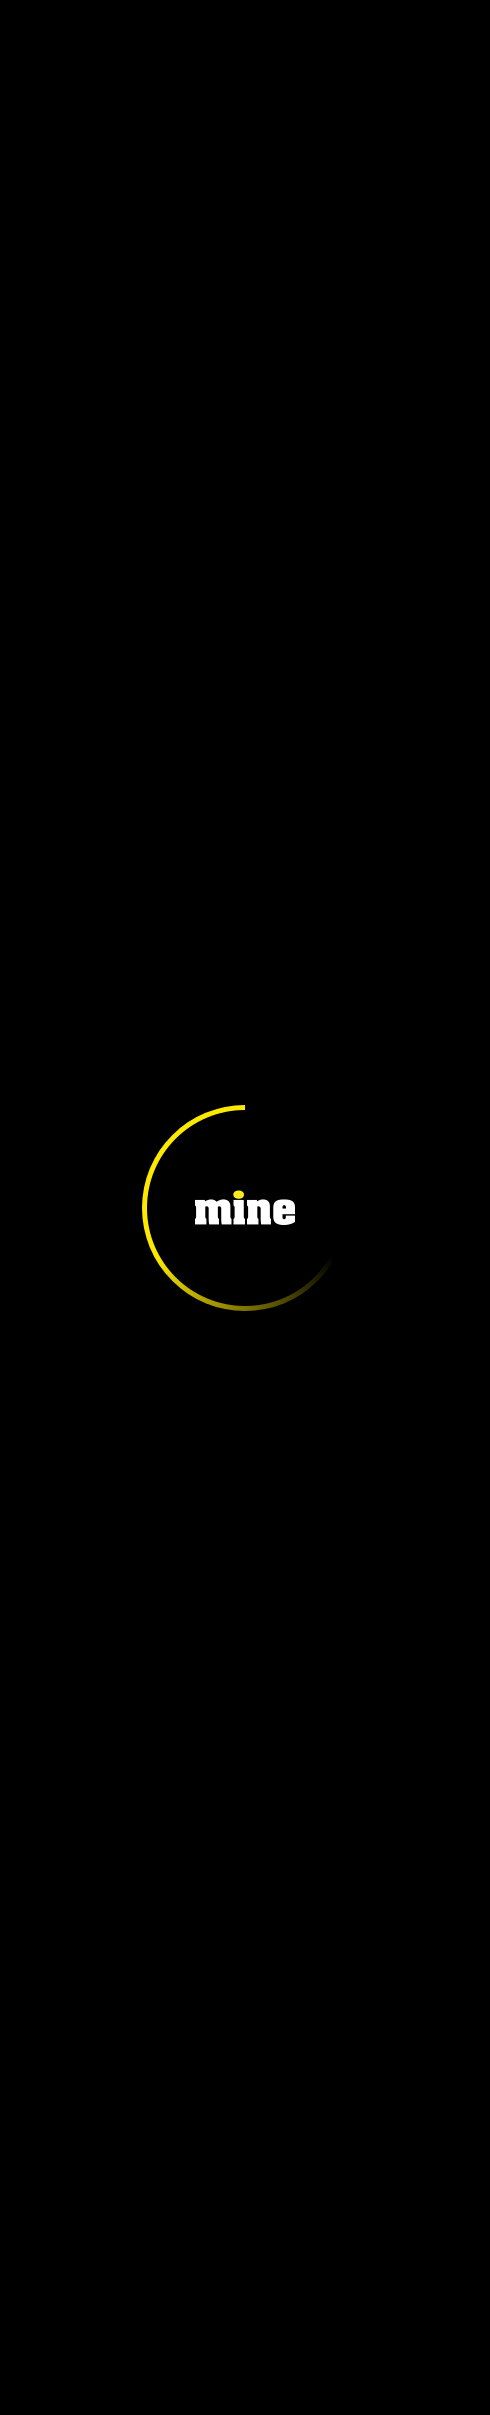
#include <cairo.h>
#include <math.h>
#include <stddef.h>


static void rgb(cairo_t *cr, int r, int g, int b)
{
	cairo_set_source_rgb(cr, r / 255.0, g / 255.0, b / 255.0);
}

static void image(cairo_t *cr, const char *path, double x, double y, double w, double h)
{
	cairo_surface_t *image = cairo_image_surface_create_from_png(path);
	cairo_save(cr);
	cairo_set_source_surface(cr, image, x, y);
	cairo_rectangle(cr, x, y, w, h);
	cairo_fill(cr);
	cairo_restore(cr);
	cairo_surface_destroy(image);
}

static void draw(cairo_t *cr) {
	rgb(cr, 0, 0, 0);
	cairo_paint(cr);
	image(cr, "image0.png", 142, 1105, 190, 206);
	rgb(cr, 0, 0, 0);
	cairo_arc(cr, 245, 1208, 98, 0, 2 * M_PI);
	cairo_fill(cr);
	image(cr, "image1.png", 195, 1190, 100, 35);
}

int main(void) {
	cairo_surface_t *surface = cairo_image_surface_create(CAIRO_FORMAT_RGB24, 490, 2415);
	cairo_t *cr = cairo_create(surface);
	cairo_font_options_t *options = cairo_font_options_create();
	cairo_font_options_set_hint_metrics(options, CAIRO_HINT_METRICS_OFF);
	cairo_font_options_set_hint_style(options, CAIRO_HINT_STYLE_NONE);
	cairo_set_font_options(cr, options);
	cairo_set_miter_limit(cr, 4);
	draw(cr);
	cairo_surface_write_to_png(surface, "render.png");
	cairo_font_options_destroy(options);
	cairo_destroy(cr);
	cairo_surface_destroy(surface);
	return 0;
}
